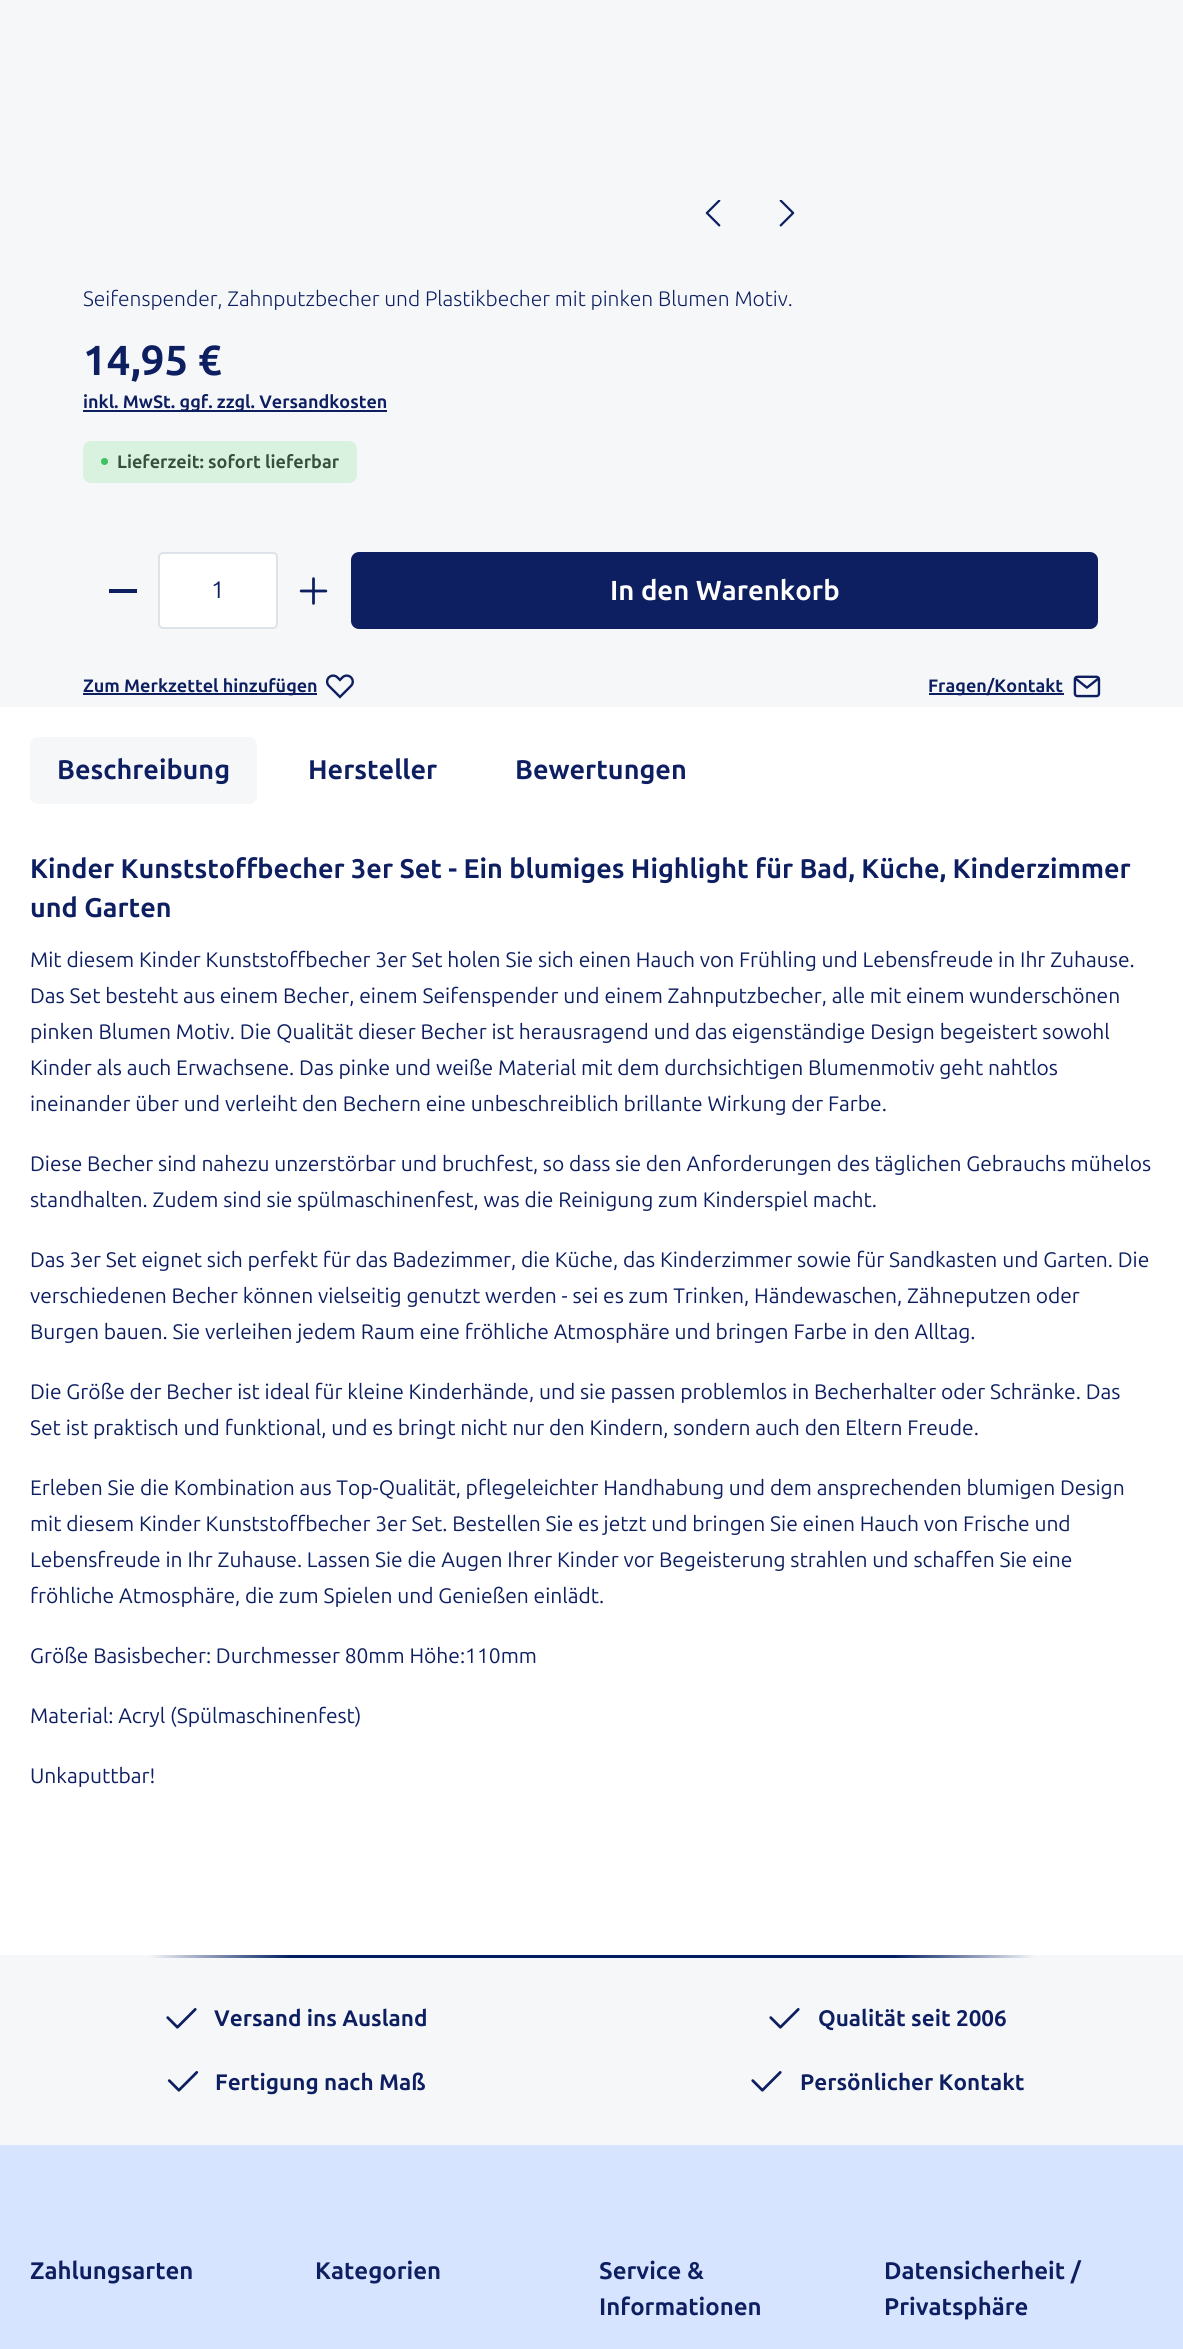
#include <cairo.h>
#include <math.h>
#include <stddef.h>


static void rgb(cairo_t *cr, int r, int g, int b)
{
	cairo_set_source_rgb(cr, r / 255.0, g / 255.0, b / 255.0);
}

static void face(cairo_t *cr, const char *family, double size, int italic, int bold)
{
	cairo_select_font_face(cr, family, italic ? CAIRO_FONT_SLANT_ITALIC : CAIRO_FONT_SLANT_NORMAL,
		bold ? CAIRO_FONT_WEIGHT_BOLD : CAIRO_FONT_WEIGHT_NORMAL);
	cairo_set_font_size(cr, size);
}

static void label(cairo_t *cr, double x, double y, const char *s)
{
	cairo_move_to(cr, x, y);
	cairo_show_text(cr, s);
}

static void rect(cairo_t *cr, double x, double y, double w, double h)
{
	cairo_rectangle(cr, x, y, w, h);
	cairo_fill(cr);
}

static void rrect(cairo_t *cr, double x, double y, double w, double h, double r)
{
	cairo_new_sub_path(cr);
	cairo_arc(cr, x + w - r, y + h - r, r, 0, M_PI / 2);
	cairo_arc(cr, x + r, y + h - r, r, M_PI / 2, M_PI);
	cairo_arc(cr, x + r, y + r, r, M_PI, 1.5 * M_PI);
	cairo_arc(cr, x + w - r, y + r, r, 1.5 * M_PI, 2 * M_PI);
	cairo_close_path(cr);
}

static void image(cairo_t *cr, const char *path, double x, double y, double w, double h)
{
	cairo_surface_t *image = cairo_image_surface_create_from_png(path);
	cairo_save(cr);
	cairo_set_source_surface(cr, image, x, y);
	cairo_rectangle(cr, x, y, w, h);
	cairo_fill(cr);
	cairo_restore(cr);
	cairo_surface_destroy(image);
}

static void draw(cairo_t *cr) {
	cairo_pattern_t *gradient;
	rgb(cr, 246, 247, 249);
	cairo_paint(cr);
	image(cr, "image0.png", 705, 200, 16, 27);
	image(cr, "image1.png", 779, 200, 16, 27);
	face(cr, "Ubuntu Light", 21, 0, 0);
	rgb(cr, 13, 31, 97);
	label(cr, 83, 306, "Seifenspender, Zahnputzbecher und Plastikbecher mit pinken Blumen Motiv.");
	face(cr, "Ubuntu", 42, 0, 1);
	label(cr, 83, 375, "14,95 €");
	rect(cr, 83, 410, 304, 2);
	face(cr, "Ubuntu", 18, 0, 1);
	label(cr, 83, 408, "inkl. MwSt. ggf. zzgl. Versandkosten");
	rgb(cr, 255, 255, 255);
	rrect(cr, 83, 441, 274, 42, 8);
	cairo_fill(cr);
	rgb(cr, 51, 51, 51);
	label(cr, 117, 468, "Lieferzeit: sofort lieferbar");
	cairo_set_source_rgba(cr, 0.235, 0.761, 0.38, 0.2);
	rrect(cr, 83, 441, 274, 42, 8);
	cairo_fill(cr);
	rgb(cr, 60, 194, 97);
	cairo_arc(cr, 104.5, 461.5, 3.5, 0, 2 * M_PI);
	cairo_fill(cr);
	rgb(cr, 13, 31, 97);
	rect(cr, 109, 589, 28, 4);
	rgb(cr, 255, 255, 255);
	rrect(cr, 159, 553, 118, 75, 4);
	cairo_fill_preserve(cr);
	rgb(cr, 222, 227, 233);
	cairo_stroke(cr);
	face(cr, "Ubuntu", 24, 0, 0);
	rgb(cr, 13, 31, 97);
	label(cr, 211, 598, "1");
	image(cr, "image2.png", 299, 577, 29, 28);
	rrect(cr, 352, 553, 745, 75, 7);
	cairo_fill_preserve(cr);
	cairo_stroke(cr);
	face(cr, "Ubuntu", 27.5, 0, 1);
	rgb(cr, 255, 255, 255);
	label(cr, 610, 600, "In den Warenkorb");
	rgb(cr, 13, 31, 97);
	rect(cr, 83, 693, 234, 2);
	face(cr, "Ubuntu", 18, 0, 1);
	label(cr, 83, 692, "Zum Merkzettel hinzufügen");
	image(cr, "image3.png", 326, 674, 28, 25);
	rect(cr, 929, 693, 135, 2);
	label(cr, 928, 692, "Fragen/Kontakt");
	image(cr, "image4.png", 1073, 675, 28, 23);
	rgb(cr, 255, 255, 255);
	rect(cr, 0, 707, 1183, 1248);
	rgb(cr, 246, 247, 249);
	rrect(cr, 30, 737, 227, 67, 8);
	cairo_fill(cr);
	face(cr, "Ubuntu", 27, 0, 1);
	rgb(cr, 13, 31, 97);
	label(cr, 57, 779, "Beschreibung");
	label(cr, 308, 779, "Hersteller");
	label(cr, 515, 779, "Bewertungen");
	label(cr, 30, 878, "Kinder Kunststoffbecher 3er Set - Ein blumiges Highlight für Bad, Küche, Kinderzimmer");
	label(cr, 30, 917, "und Garten");
	face(cr, "Ubuntu", 21, 0, 0);
	label(cr, 30, 967, "Mit diesem Kinder Kunststoffbecher 3er Set holen Sie sich einen Hauch von Frühling und Lebensfreude in Ihr Zuhause.");
	label(cr, 30, 1003, "Das Set besteht aus einem Becher, einem Seifenspender und einem Zahnputzbecher, alle mit einem wunderschönen");
	label(cr, 30, 1039, "pinken Blumen Motiv. Die Qualität dieser Becher ist herausragend und das eigenständige Design begeistert sowohl");
	label(cr, 30, 1075, "Kinder als auch Erwachsene. Das pinke und weiße Material mit dem durchsichtigen Blumenmotiv geht nahtlos");
	label(cr, 30, 1111, "ineinander über und verleiht den Bechern eine unbeschreiblich brillante Wirkung der Farbe.");
	label(cr, 30, 1171, "Diese Becher sind nahezu unzerstörbar und bruchfest, so dass sie den Anforderungen des täglichen Gebrauchs mühelos");
	label(cr, 30, 1207, "standhalten. Zudem sind sie spülmaschinenfest, was die Reinigung zum Kinderspiel macht.");
	label(cr, 30, 1267, "Das 3er Set eignet sich perfekt für das Badezimmer, die Küche, das Kinderzimmer sowie für Sandkasten und Garten. Die");
	label(cr, 30, 1303, "verschiedenen Becher können vielseitig genutzt werden - sei es zum Trinken, Händewaschen, Zähneputzen oder");
	label(cr, 30, 1339, "Burgen bauen. Sie verleihen jedem Raum eine fröhliche Atmosphäre und bringen Farbe in den Alltag.");
	label(cr, 30, 1399, "Die Größe der Becher ist ideal für kleine Kinderhände, und sie passen problemlos in Becherhalter oder Schränke. Das");
	label(cr, 30, 1435, "Set ist praktisch und funktional, und es bringt nicht nur den Kindern, sondern auch den Eltern Freude.");
	label(cr, 30, 1495, "Erleben Sie die Kombination aus Top-Qualität, pflegeleichter Handhabung und dem ansprechenden blumigen Design");
	label(cr, 30, 1531, "mit diesem Kinder Kunststoffbecher 3er Set. Bestellen Sie es jetzt und bringen Sie einen Hauch von Frische und");
	label(cr, 30, 1567, "Lebensfreude in Ihr Zuhause. Lassen Sie die Augen Ihrer Kinder vor Begeisterung strahlen und schaffen Sie eine");
	label(cr, 30, 1603, "fröhliche Atmosphäre, die zum Spielen und Genießen einlädt.");
	label(cr, 30, 1663, "Größe Basisbecher: Durchmesser 80mm Höhe:110mm");
	label(cr, 30, 1723, "Material: Acryl (Spülmaschinenfest)");
	label(cr, 30, 1783, "Unkaputtbar!");
	gradient = cairo_pattern_create_radial(592, 1956, 0, 592, 1956, 443);
	cairo_pattern_add_color_stop_rgba(gradient, 0, 0, 0.118, 0.376, 1);
	cairo_pattern_add_color_stop_rgba(gradient, 0.68, 0, 0.118, 0.376, 1);
	cairo_pattern_add_color_stop_rgba(gradient, 1, 0.965, 0.969, 0.976, 1);
	cairo_set_source(cr, gradient);
	cairo_pattern_destroy(gradient);
	rect(cr, 149, 1955, 886, 3);
	image(cr, "image5.png", 166, 2008, 31, 21);
	face(cr, "Ubuntu", 22.5, 0, 1);
	rgb(cr, 13, 31, 97);
	label(cr, 214, 2026, "Versand ins Ausland");
	image(cr, "image5.png", 769, 2008, 31, 21);
	label(cr, 818, 2026, "Qualität seit 2006");
	image(cr, "image6.png", 167, 2071, 32, 21);
	label(cr, 215, 2090, "Fertigung nach Maß");
	image(cr, "image5.png", 751, 2071, 31, 21);
	label(cr, 800, 2090, "Persönlicher Kontakt");
	rgb(cr, 215, 228, 255);
	rect(cr, 0, 2145, 1183, 204);
	face(cr, "Ubuntu", 24, 0, 1);
	rgb(cr, 13, 31, 97);
	label(cr, 30, 2279, "Zahlungsarten");
	label(cr, 315, 2279, "Kategorien");
	label(cr, 599, 2279, "Service &");
	label(cr, 599, 2315, "Informationen");
	label(cr, 884, 2279, "Datensicherheit /");
	label(cr, 884, 2315, "Privatsphäre");
}

int main(void) {
	cairo_surface_t *surface = cairo_image_surface_create(CAIRO_FORMAT_RGB24, 1183, 2349);
	cairo_t *cr = cairo_create(surface);
	cairo_font_options_t *options = cairo_font_options_create();
	cairo_font_options_set_hint_metrics(options, CAIRO_HINT_METRICS_OFF);
	cairo_font_options_set_hint_style(options, CAIRO_HINT_STYLE_NONE);
	cairo_set_font_options(cr, options);
	cairo_set_miter_limit(cr, 4);
	draw(cr);
	cairo_surface_write_to_png(surface, "render.png");
	cairo_font_options_destroy(options);
	cairo_destroy(cr);
	cairo_surface_destroy(surface);
	return 0;
}
